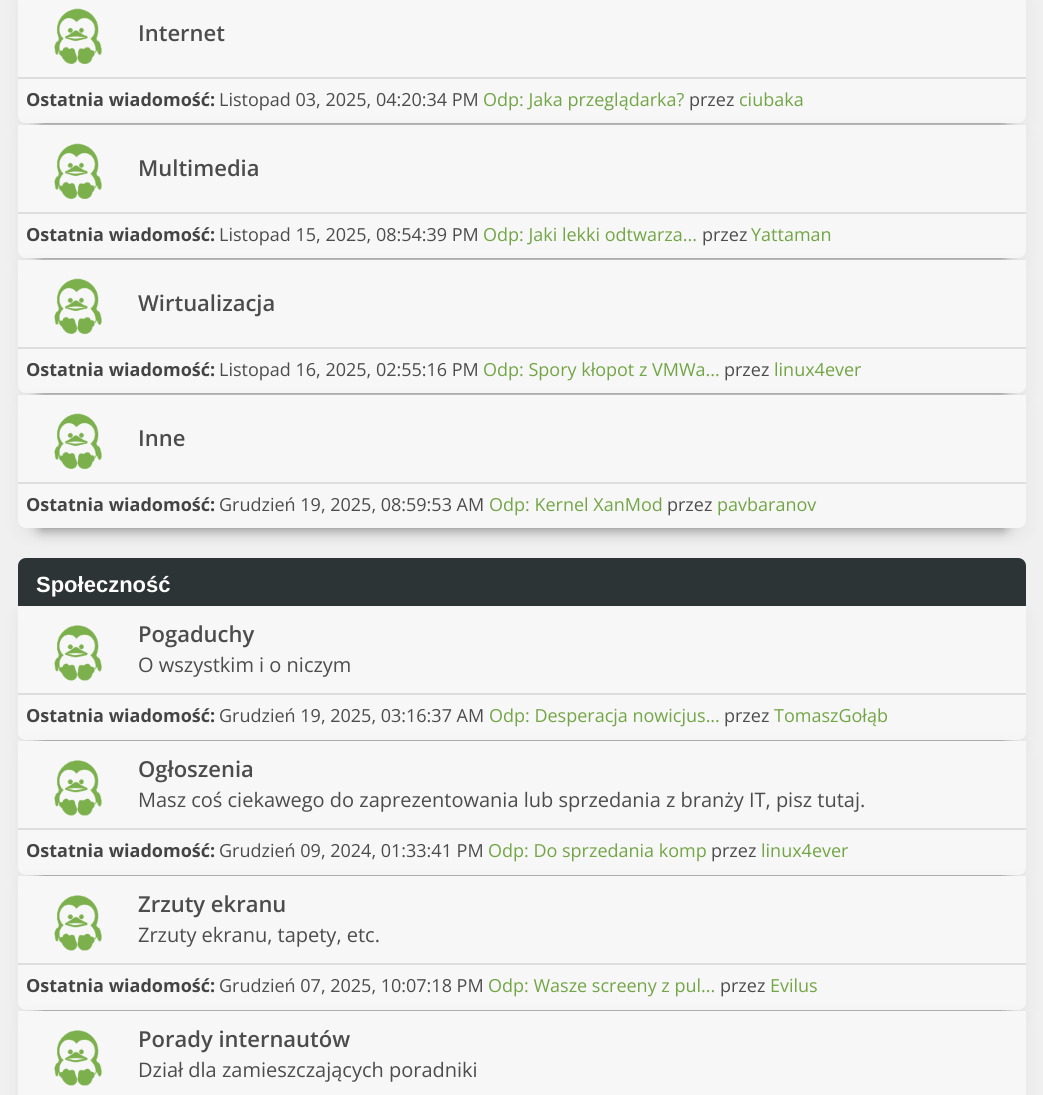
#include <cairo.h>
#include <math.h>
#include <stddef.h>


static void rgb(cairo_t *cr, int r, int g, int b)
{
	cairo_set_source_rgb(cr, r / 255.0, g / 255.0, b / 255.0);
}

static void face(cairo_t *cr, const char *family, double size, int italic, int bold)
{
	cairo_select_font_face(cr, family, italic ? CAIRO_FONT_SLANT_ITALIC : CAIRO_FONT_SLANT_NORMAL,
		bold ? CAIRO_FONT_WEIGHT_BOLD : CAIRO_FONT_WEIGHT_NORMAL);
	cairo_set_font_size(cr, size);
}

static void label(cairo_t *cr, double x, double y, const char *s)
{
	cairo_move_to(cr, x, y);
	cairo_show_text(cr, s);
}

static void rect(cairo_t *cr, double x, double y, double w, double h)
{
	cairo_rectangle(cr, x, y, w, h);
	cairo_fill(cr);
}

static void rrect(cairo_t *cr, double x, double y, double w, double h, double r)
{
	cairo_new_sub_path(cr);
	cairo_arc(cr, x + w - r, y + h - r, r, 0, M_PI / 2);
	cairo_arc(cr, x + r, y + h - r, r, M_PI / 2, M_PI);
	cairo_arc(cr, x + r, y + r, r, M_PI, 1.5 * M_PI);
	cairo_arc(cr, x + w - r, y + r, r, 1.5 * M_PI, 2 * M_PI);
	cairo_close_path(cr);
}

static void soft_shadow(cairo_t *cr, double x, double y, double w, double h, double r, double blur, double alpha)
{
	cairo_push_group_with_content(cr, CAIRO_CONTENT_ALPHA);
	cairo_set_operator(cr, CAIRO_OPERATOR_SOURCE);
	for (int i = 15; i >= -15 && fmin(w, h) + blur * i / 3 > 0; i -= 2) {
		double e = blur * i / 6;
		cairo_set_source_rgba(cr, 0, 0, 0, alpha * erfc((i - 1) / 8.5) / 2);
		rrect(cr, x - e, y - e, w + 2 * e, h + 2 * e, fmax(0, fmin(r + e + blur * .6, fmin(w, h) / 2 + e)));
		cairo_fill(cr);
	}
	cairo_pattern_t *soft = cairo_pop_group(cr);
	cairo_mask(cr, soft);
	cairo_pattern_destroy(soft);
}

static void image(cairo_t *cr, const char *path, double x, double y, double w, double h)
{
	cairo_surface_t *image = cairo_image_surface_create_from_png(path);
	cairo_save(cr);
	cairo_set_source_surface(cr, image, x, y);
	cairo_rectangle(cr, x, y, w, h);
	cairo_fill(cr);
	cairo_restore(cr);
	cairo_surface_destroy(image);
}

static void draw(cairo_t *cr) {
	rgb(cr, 240, 240, 240);
	cairo_paint(cr);
	rgb(cr, 1, 0, 0);
	soft_shadow(cr, 41, 35, 963, 88, 0, 7.5, 0.5);
	rgb(cr, 0, 0, 0);
	soft_shadow(cr, 18, -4, 1008, 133, 8, 9, 0.05);
	rgb(cr, 247, 247, 247);
	cairo_new_path(cr);
	cairo_move_to(cr, 18, -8);
	cairo_line_to(cr, 1026, -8);
	cairo_line_to(cr, 1026, 115);
	cairo_curve_to(cr, 1026, 119.5, 1022.5, 123, 1018, 123);
	cairo_line_to(cr, 26, 123);
	cairo_curve_to(cr, 21.5, 123, 18, 119.5, 18, 115);
	cairo_close_path(cr);
	cairo_fill(cr);
	image(cr, "image0.png", 54, 8, 48, 56);
	face(cr, "Open Sans SemiBold", 22, 0, 0);
	rgb(cr, 76, 76, 76);
	label(cr, 138, 41, "Internet");
	rgb(cr, 221, 221, 221);
	rect(cr, 18, 77, 1008, 2);
	face(cr, "Open Sans", 18, 0, 1);
	rgb(cr, 68, 68, 68);
	label(cr, 26, 106, "Ostatnia wiadomość:");
	face(cr, "Open Sans", 18, 0, 0);
	rgb(cr, 76, 76, 76);
	label(cr, 219, 106, "Listopad 03, 2025, 04:20:34 PM");
	rgb(cr, 114, 165, 69);
	label(cr, 483, 106, "Odp: Jaka przeglądarka?");
	rgb(cr, 76, 76, 76);
	label(cr, 689, 106, "przez");
	rgb(cr, 114, 165, 69);
	label(cr, 739, 106, "ciubaka");
	rgb(cr, 1, 0, 0);
	soft_shadow(cr, 41, 170, 963, 88, 0, 7.5, 0.5);
	rgb(cr, 0, 0, 0);
	soft_shadow(cr, 18, 131, 1008, 133, 8, 9, 0.05);
	rgb(cr, 247, 247, 247);
	cairo_new_path(cr);
	cairo_move_to(cr, 18, 125);
	cairo_line_to(cr, 1026, 125);
	cairo_line_to(cr, 1026, 250);
	cairo_curve_to(cr, 1026, 254.5, 1022.5, 258, 1018, 258);
	cairo_line_to(cr, 26, 258);
	cairo_curve_to(cr, 21.5, 258, 18, 254.5, 18, 250);
	cairo_close_path(cr);
	cairo_fill(cr);
	image(cr, "image0.png", 54, 143, 48, 56);
	face(cr, "Open Sans SemiBold", 22, 0, 0);
	rgb(cr, 76, 76, 76);
	label(cr, 138, 176, "Multimedia");
	rgb(cr, 221, 221, 221);
	rect(cr, 18, 212, 1008, 2);
	face(cr, "Open Sans", 18, 0, 1);
	rgb(cr, 68, 68, 68);
	label(cr, 26, 241, "Ostatnia wiadomość:");
	face(cr, "Open Sans", 18, 0, 0);
	rgb(cr, 76, 76, 76);
	label(cr, 219, 241, "Listopad 15, 2025, 08:54:39 PM");
	rgb(cr, 114, 165, 69);
	label(cr, 483, 241, "Odp: Jaki lekki odtwarza...");
	rgb(cr, 76, 76, 76);
	label(cr, 702, 241, "przez");
	rgb(cr, 114, 165, 69);
	label(cr, 751, 241, "Yattaman");
	rgb(cr, 1, 0, 0);
	soft_shadow(cr, 41, 305, 963, 88, 0, 7.5, 0.5);
	rgb(cr, 0, 0, 0);
	soft_shadow(cr, 18, 266, 1008, 133, 8, 9, 0.05);
	rgb(cr, 247, 247, 247);
	cairo_new_path(cr);
	cairo_move_to(cr, 18, 260);
	cairo_line_to(cr, 1026, 260);
	cairo_line_to(cr, 1026, 385);
	cairo_curve_to(cr, 1026, 389.5, 1022.5, 393, 1018, 393);
	cairo_line_to(cr, 26, 393);
	cairo_curve_to(cr, 21.5, 393, 18, 389.5, 18, 385);
	cairo_close_path(cr);
	cairo_fill(cr);
	image(cr, "image0.png", 54, 278, 48, 56);
	face(cr, "Open Sans SemiBold", 22, 0, 0);
	rgb(cr, 76, 76, 76);
	label(cr, 138, 311, "Wirtualizacja");
	rgb(cr, 221, 221, 221);
	rect(cr, 18, 347, 1008, 2);
	face(cr, "Open Sans", 18, 0, 1);
	rgb(cr, 68, 68, 68);
	label(cr, 26, 376, "Ostatnia wiadomość:");
	face(cr, "Open Sans", 18, 0, 0);
	rgb(cr, 76, 76, 76);
	label(cr, 219, 376, "Listopad 16, 2025, 02:55:16 PM");
	rgb(cr, 114, 165, 69);
	label(cr, 483, 376, "Odp: Spory kłopot z VMWa...");
	rgb(cr, 76, 76, 76);
	label(cr, 724, 376, "przez");
	rgb(cr, 114, 165, 69);
	label(cr, 774, 376, "linux4ever");
	rgb(cr, 1, 0, 0);
	soft_shadow(cr, 41, 440, 963, 88, 0, 7.5, 0.5);
	rgb(cr, 45, 52, 54);
	cairo_new_path(cr);
	cairo_move_to(cr, 26, 558);
	cairo_line_to(cr, 1018, 558);
	cairo_curve_to(cr, 1022.5, 558, 1026, 561.5, 1026, 566);
	cairo_line_to(cr, 1026, 609);
	cairo_line_to(cr, 18, 609);
	cairo_line_to(cr, 18, 566);
	cairo_curve_to(cr, 18, 561.5, 21.5, 558, 26, 558);
	cairo_close_path(cr);
	cairo_fill(cr);
	rgb(cr, 0, 0, 0);
	soft_shadow(cr, 18, 401, 1008, 133, 8, 9, 0.05);
	rgb(cr, 247, 247, 247);
	cairo_new_path(cr);
	cairo_move_to(cr, 18, 395);
	cairo_line_to(cr, 1026, 395);
	cairo_line_to(cr, 1026, 520);
	cairo_curve_to(cr, 1026, 524.5, 1022.5, 528, 1018, 528);
	cairo_line_to(cr, 26, 528);
	cairo_curve_to(cr, 21.5, 528, 18, 524.5, 18, 520);
	cairo_close_path(cr);
	cairo_fill(cr);
	image(cr, "image0.png", 54, 413, 48, 56);
	face(cr, "Open Sans SemiBold", 22, 0, 0);
	rgb(cr, 76, 76, 76);
	label(cr, 138, 446, "Inne");
	rgb(cr, 221, 221, 221);
	rect(cr, 18, 482, 1008, 2);
	face(cr, "Open Sans", 18, 0, 1);
	rgb(cr, 68, 68, 68);
	label(cr, 26, 511, "Ostatnia wiadomość:");
	face(cr, "Open Sans", 18, 0, 0);
	rgb(cr, 76, 76, 76);
	label(cr, 219, 511, "Grudzień 19, 2025, 08:59:53 AM");
	rgb(cr, 114, 165, 69);
	label(cr, 489, 511, "Odp: Kernel XanMod");
	rgb(cr, 76, 76, 76);
	label(cr, 667, 511, "przez");
	rgb(cr, 114, 165, 69);
	label(cr, 717, 511, "pavbaranov");
	face(cr, "Liberation Sans", 22, 0, 1);
	rgb(cr, 255, 255, 255);
	label(cr, 36, 592, "Społeczność");
	rgb(cr, 1, 0, 0);
	soft_shadow(cr, 41, 651, 963, 89, 0, 7.5, 0.5);
	rgb(cr, 0, 0, 0);
	soft_shadow(cr, 18, 612, 1008, 134, 8, 9, 0.05);
	rgb(cr, 247, 247, 247);
	cairo_new_path(cr);
	cairo_move_to(cr, 18, 606);
	cairo_line_to(cr, 1026, 606);
	cairo_line_to(cr, 1026, 732);
	cairo_curve_to(cr, 1026, 736.5, 1022.5, 740, 1018, 740);
	cairo_line_to(cr, 26, 740);
	cairo_curve_to(cr, 21.5, 740, 18, 736.5, 18, 732);
	cairo_close_path(cr);
	cairo_fill(cr);
	image(cr, "image1.png", 54, 625, 48, 56);
	face(cr, "Open Sans SemiBold", 22, 0, 0);
	rgb(cr, 76, 76, 76);
	label(cr, 138, 642, "Pogaduchy");
	face(cr, "Open Sans", 20, 0, 0);
	label(cr, 138, 672, "O wszystkim i o niczym");
	rgb(cr, 221, 221, 221);
	rect(cr, 18, 693, 1008, 2);
	face(cr, "Open Sans", 18, 0, 1);
	rgb(cr, 68, 68, 68);
	label(cr, 26, 722, "Ostatnia wiadomość:");
	face(cr, "Open Sans", 18, 0, 0);
	rgb(cr, 76, 76, 76);
	label(cr, 219, 722, "Grudzień 19, 2025, 03:16:37 AM");
	rgb(cr, 114, 165, 69);
	label(cr, 489, 722, "Odp: Desperacja nowicjus...");
	rgb(cr, 76, 76, 76);
	label(cr, 724, 722, "przez");
	rgb(cr, 114, 165, 69);
	label(cr, 774, 722, "TomaszGołąb");
	rgb(cr, 1, 0, 0);
	soft_shadow(cr, 41, 786, 963, 89, 0, 7.5, 0.5);
	rgb(cr, 0, 0, 0);
	soft_shadow(cr, 18, 747, 1008, 134, 8, 9, 0.05);
	rgb(cr, 247, 247, 247);
	cairo_new_path(cr);
	cairo_move_to(cr, 18, 741);
	cairo_line_to(cr, 1026, 741);
	cairo_line_to(cr, 1026, 867);
	cairo_curve_to(cr, 1026, 871.5, 1022.5, 875, 1018, 875);
	cairo_line_to(cr, 26, 875);
	cairo_curve_to(cr, 21.5, 875, 18, 871.5, 18, 867);
	cairo_close_path(cr);
	cairo_fill(cr);
	image(cr, "image1.png", 54, 760, 48, 56);
	face(cr, "Open Sans SemiBold", 22, 0, 0);
	rgb(cr, 76, 76, 76);
	label(cr, 138, 777, "Ogłoszenia");
	face(cr, "Open Sans", 20, 0, 0);
	label(cr, 138, 807, "Masz coś ciekawego do zaprezentowania lub sprzedania z branży IT, pisz tutaj.");
	rgb(cr, 221, 221, 221);
	rect(cr, 18, 828, 1008, 2);
	face(cr, "Open Sans", 18, 0, 1);
	rgb(cr, 68, 68, 68);
	label(cr, 26, 857, "Ostatnia wiadomość:");
	face(cr, "Open Sans", 18, 0, 0);
	rgb(cr, 76, 76, 76);
	label(cr, 219, 857, "Grudzień 09, 2024, 01:33:41 PM");
	rgb(cr, 114, 165, 69);
	label(cr, 488, 857, "Odp: Do sprzedania komp");
	rgb(cr, 76, 76, 76);
	label(cr, 711, 857, "przez");
	rgb(cr, 114, 165, 69);
	label(cr, 761, 857, "linux4ever");
	rgb(cr, 1, 0, 0);
	soft_shadow(cr, 41, 921, 963, 89, 0, 7.5, 0.5);
	rgb(cr, 0, 0, 0);
	soft_shadow(cr, 18, 882, 1008, 134, 8, 9, 0.05);
	rgb(cr, 247, 247, 247);
	cairo_new_path(cr);
	cairo_move_to(cr, 18, 876);
	cairo_line_to(cr, 1026, 876);
	cairo_line_to(cr, 1026, 1002);
	cairo_curve_to(cr, 1026, 1006.5, 1022.5, 1010, 1018, 1010);
	cairo_line_to(cr, 26, 1010);
	cairo_curve_to(cr, 21.5, 1010, 18, 1006.5, 18, 1002);
	cairo_close_path(cr);
	cairo_fill(cr);
	image(cr, "image1.png", 54, 895, 48, 56);
	face(cr, "Open Sans SemiBold", 22, 0, 0);
	rgb(cr, 76, 76, 76);
	label(cr, 138, 912, "Zrzuty ekranu");
	face(cr, "Open Sans", 20, 0, 0);
	label(cr, 138, 942, "Zrzuty ekranu, tapety, etc.");
	rgb(cr, 221, 221, 221);
	rect(cr, 18, 963, 1008, 2);
	face(cr, "Open Sans", 18, 0, 1);
	rgb(cr, 68, 68, 68);
	label(cr, 26, 992, "Ostatnia wiadomość:");
	face(cr, "Open Sans", 18, 0, 0);
	rgb(cr, 76, 76, 76);
	label(cr, 219, 992, "Grudzień 07, 2025, 10:07:18 PM");
	rgb(cr, 114, 165, 69);
	label(cr, 488, 992, "Odp: Wasze screeny z pul...");
	rgb(cr, 76, 76, 76);
	label(cr, 720, 992, "przez");
	rgb(cr, 114, 165, 69);
	label(cr, 770, 992, "Evilus");
	rgb(cr, 0, 0, 0);
	soft_shadow(cr, 18, 1017, 1008, 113, 8, 9, 0.05);
	rgb(cr, 247, 247, 247);
	rect(cr, 18, 1011, 1008, 84);
	image(cr, "image1.png", 54, 1030, 48, 56);
	face(cr, "Open Sans SemiBold", 22, 0, 0);
	rgb(cr, 76, 76, 76);
	label(cr, 138, 1047, "Porady internautów");
	face(cr, "Open Sans", 20, 0, 0);
	label(cr, 138, 1077, "Dział dla zamieszczających poradniki");
}

int main(void) {
	cairo_surface_t *surface = cairo_image_surface_create(CAIRO_FORMAT_RGB24, 1043, 1095);
	cairo_t *cr = cairo_create(surface);
	cairo_font_options_t *options = cairo_font_options_create();
	cairo_font_options_set_hint_metrics(options, CAIRO_HINT_METRICS_OFF);
	cairo_font_options_set_hint_style(options, CAIRO_HINT_STYLE_NONE);
	cairo_set_font_options(cr, options);
	cairo_set_miter_limit(cr, 4);
	draw(cr);
	cairo_surface_write_to_png(surface, "render.png");
	cairo_font_options_destroy(options);
	cairo_destroy(cr);
	cairo_surface_destroy(surface);
	return 0;
}
